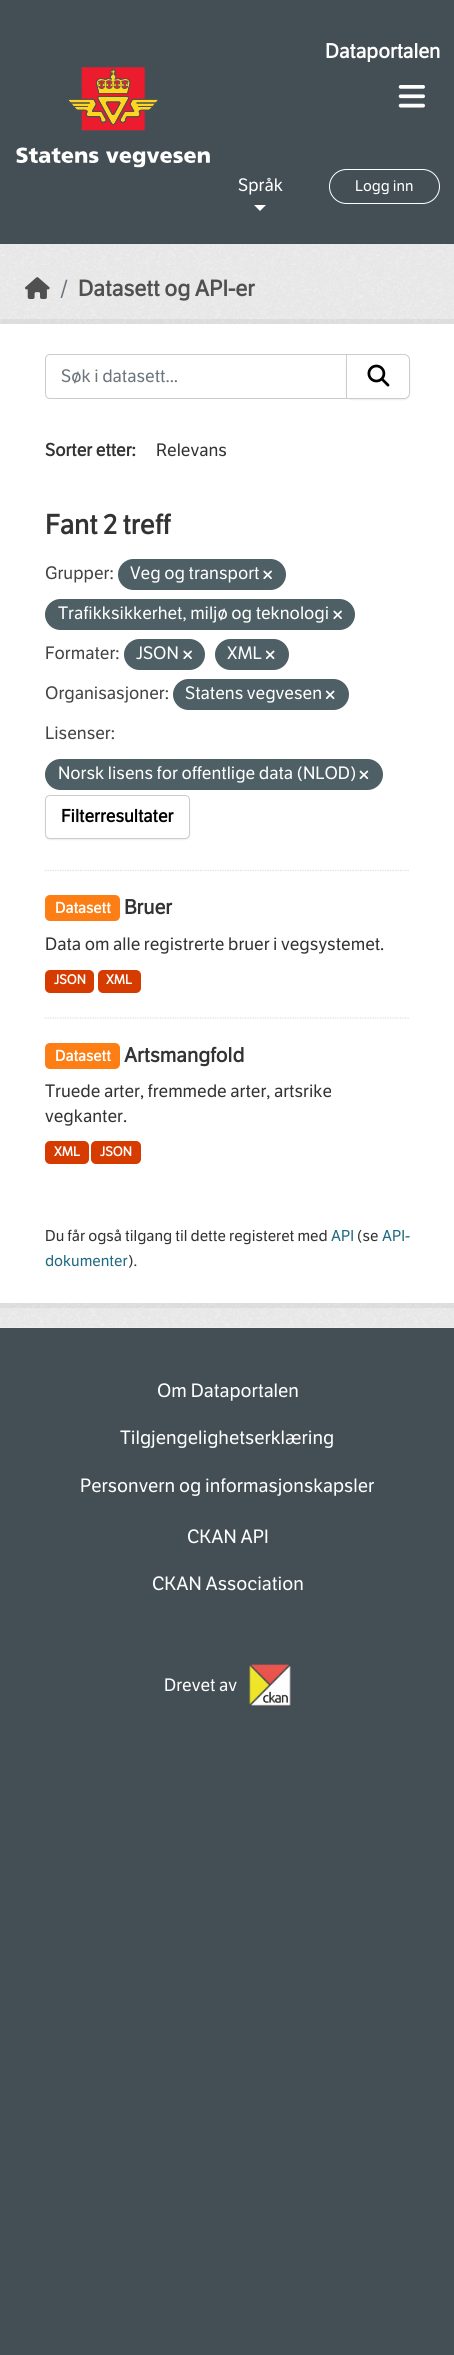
#include <cairo.h>
#include <math.h>
#include <stddef.h>


static void rgb(cairo_t *cr, int r, int g, int b)
{
	cairo_set_source_rgb(cr, r / 255.0, g / 255.0, b / 255.0);
}

static void face(cairo_t *cr, const char *family, double size, int italic, int bold)
{
	cairo_select_font_face(cr, family, italic ? CAIRO_FONT_SLANT_ITALIC : CAIRO_FONT_SLANT_NORMAL,
		bold ? CAIRO_FONT_WEIGHT_BOLD : CAIRO_FONT_WEIGHT_NORMAL);
	cairo_set_font_size(cr, size);
}

static void label(cairo_t *cr, double x, double y, const char *s)
{
	cairo_move_to(cr, x, y);
	cairo_show_text(cr, s);
}

static void rect(cairo_t *cr, double x, double y, double w, double h)
{
	cairo_rectangle(cr, x, y, w, h);
	cairo_fill(cr);
}

static void rrect(cairo_t *cr, double x, double y, double w, double h, double r)
{
	cairo_new_sub_path(cr);
	cairo_arc(cr, x + w - r, y + h - r, r, 0, M_PI / 2);
	cairo_arc(cr, x + r, y + h - r, r, M_PI / 2, M_PI);
	cairo_arc(cr, x + r, y + r, r, M_PI, 1.5 * M_PI);
	cairo_arc(cr, x + w - r, y + r, r, 1.5 * M_PI, 2 * M_PI);
	cairo_close_path(cr);
}

static void soft_shadow(cairo_t *cr, double x, double y, double w, double h, double r, double blur, double alpha)
{
	cairo_push_group_with_content(cr, CAIRO_CONTENT_ALPHA);
	cairo_set_operator(cr, CAIRO_OPERATOR_SOURCE);
	for (int i = 15; i >= -15 && fmin(w, h) + blur * i / 3 > 0; i -= 2) {
		double e = blur * i / 6;
		cairo_set_source_rgba(cr, 0, 0, 0, alpha * erfc((i - 1) / 8.5) / 2);
		rrect(cr, x - e, y - e, w + 2 * e, h + 2 * e, fmax(0, fmin(r + e + blur * .6, fmin(w, h) / 2 + e)));
		cairo_fill(cr);
	}
	cairo_pattern_t *soft = cairo_pop_group(cr);
	cairo_mask(cr, soft);
	cairo_pattern_destroy(soft);
}

static void image(cairo_t *cr, const char *path, double x, double y, double w, double h)
{
	cairo_surface_t *image = cairo_image_surface_create_from_png(path);
	cairo_save(cr);
	cairo_set_source_surface(cr, image, x, y);
	cairo_rectangle(cr, x, y, w, h);
	cairo_fill(cr);
	cairo_restore(cr);
	cairo_surface_destroy(image);
}

static void draw(cairo_t *cr) {
	rgb(cr, 68, 79, 85);
	cairo_paint(cr);
	face(cr, "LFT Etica", 20, 0, 1);
	rgb(cr, 255, 255, 255);
	label(cr, 325, 58, "Dataportalen");
	image(cr, "image0.png", 16, 67, 194, 101);
	image(cr, "image1.png", 398, 85, 27, 23);
	face(cr, "LFT Etica", 17.5, 0, 0);
	label(cr, 238, 191, "Språk");
	cairo_new_path(cr);
	cairo_move_to(cr, 254, 205);
	cairo_line_to(cr, 266, 205);
	cairo_line_to(cr, 260, 211);
	cairo_close_path(cr);
	cairo_fill(cr);
	rrect(cr, 329.5, 169.5, 110, 34, 17);
	cairo_set_line_width(cr, 1);
	cairo_stroke(cr);
	face(cr, "LFT Etica", 15, 0, 0);
	label(cr, 355, 191, "Logg inn");
	rgb(cr, 238, 238, 238);
	rect(cr, 0, 244, 454, 1084);
	image(cr, "image2.png", 0, 244, 454, 1083);
	image(cr, "image3.png", 25, 277, 25, 22);
	face(cr, "LFT Etica", 22, 0, 0);
	rgb(cr, 108, 117, 125);
	label(cr, 60, 296, "/");
	face(cr, "LFT Etica", 22, 0, 1);
	rgb(cr, 80, 80, 80);
	label(cr, 78, 296, "Datasett og API-er");
	cairo_rectangle(cr, -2.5, 321.5, 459, 984);
	cairo_set_source_rgba(cr, 0, 0, 0, 0.05);
	cairo_set_line_width(cr, 5);
	cairo_stroke(cr);
	rgb(cr, 255, 255, 255);
	rect(cr, 0, 324, 454, 979);
	cairo_new_path(cr);
	cairo_move_to(cr, 45, 870.5);
	cairo_line_to(cr, 410, 870.5);
	rgb(cr, 221, 221, 221);
	cairo_set_line_width(cr, 1.2);
	cairo_set_dash(cr, (double[]){1.25, 1.25}, 2, 0);
	cairo_stroke(cr);
	cairo_new_path(cr);
	cairo_move_to(cr, 50, 354.5);
	cairo_line_to(cr, 347.5, 354.5);
	cairo_line_to(cr, 347.5, 398.5);
	cairo_line_to(cr, 50, 398.5);
	cairo_curve_to(cr, 47.5, 398.5, 45.5, 396.5, 45.5, 394);
	cairo_line_to(cr, 45.5, 359);
	cairo_curve_to(cr, 45.5, 356.5, 47.5, 354.5, 50, 354.5);
	cairo_close_path(cr);
	rgb(cr, 204, 204, 204);
	cairo_set_line_width(cr, 1);
	cairo_set_dash(cr, NULL, 0, 0);
	cairo_stroke(cr);
	face(cr, "LFT Etica", 17.5, 0, 0);
	rgb(cr, 108, 117, 125);
	label(cr, 61, 382, "Søk i datasett...");
	rgb(cr, 0, 0, 0);
	soft_shadow(cr, 346, 355, 64, 45, 6, 0.5, 0.07);
	rgb(cr, 255, 255, 255);
	cairo_new_path(cr);
	cairo_move_to(cr, 346.5, 354.5);
	cairo_line_to(cr, 404, 354.5);
	cairo_curve_to(cr, 407, 354.5, 409.5, 357, 409.5, 360);
	cairo_line_to(cr, 409.5, 393);
	cairo_curve_to(cr, 409.5, 396, 407, 398.5, 404, 398.5);
	cairo_line_to(cr, 346.5, 398.5);
	cairo_close_path(cr);
	cairo_fill_preserve(cr);
	rgb(cr, 204, 204, 204);
	cairo_stroke(cr);
	image(cr, "image4.png", 367, 364, 23, 23);
	face(cr, "LFT Etica", 17.5, 0, 1);
	rgb(cr, 51, 51, 51);
	label(cr, 45, 456, "Sorter etter:");
	face(cr, "LFT Etica", 17.5, 0, 0);
	label(cr, 156, 456, "Relevans");
	face(cr, "LFT Etica", 27, 0, 1);
	label(cr, 45, 534, "Fant 2 treff");
	face(cr, "LFT Etica", 17.5, 0, 0);
	rgb(cr, 68, 68, 68);
	label(cr, 45, 579, "Grupper:");
	rgb(cr, 78, 95, 101);
	rrect(cr, 118, 559, 168, 31, 15.5);
	cairo_fill(cr);
	rgb(cr, 255, 255, 255);
	label(cr, 130, 579, "Veg og transport");
	image(cr, "image5.png", 263, 570, 9, 10);
	rgb(cr, 78, 95, 101);
	rrect(cr, 45, 599, 310, 31, 15.5);
	cairo_fill(cr);
	rgb(cr, 255, 255, 255);
	label(cr, 58, 619, "Trafikksikkerhet, miljø og teknologi");
	image(cr, "image5.png", 333, 610, 9, 10);
	rgb(cr, 68, 68, 68);
	label(cr, 45, 659, "Formater:");
	rgb(cr, 78, 95, 101);
	rrect(cr, 124, 639, 81, 31, 15.5);
	cairo_fill(cr);
	rgb(cr, 255, 255, 255);
	label(cr, 136, 659, "JSON");
	image(cr, "image5.png", 183, 650, 9, 10);
	rgb(cr, 78, 95, 101);
	rrect(cr, 215, 639, 74, 31, 15.5);
	cairo_fill(cr);
	rgb(cr, 255, 255, 255);
	label(cr, 227, 659, "XML");
	image(cr, "image6.png", 265, 650, 10, 10);
	rgb(cr, 68, 68, 68);
	label(cr, 45, 699, "Organisasjoner:");
	rgb(cr, 78, 95, 101);
	rrect(cr, 173, 679, 176, 31, 15.5);
	cairo_fill(cr);
	rgb(cr, 255, 255, 255);
	label(cr, 185, 699, "Statens vegvesen");
	image(cr, "image6.png", 325, 690, 10, 10);
	rgb(cr, 68, 68, 68);
	label(cr, 45, 739, "Lisenser:");
	rgb(cr, 78, 95, 101);
	rrect(cr, 45, 759, 338, 31, 15.5);
	cairo_fill(cr);
	rgb(cr, 255, 255, 255);
	label(cr, 58, 779, "Norsk lisens for offentlige data (NLOD)");
	image(cr, "image7.png", 359, 770, 10, 10);
	rgb(cr, 0, 0, 0);
	soft_shadow(cr, 45, 796, 145, 44, 5, 0.5, 0.07);
	rgb(cr, 255, 255, 255);
	rrect(cr, 45.5, 795.5, 144, 43, 4.5);
	cairo_fill_preserve(cr);
	rgb(cr, 204, 204, 204);
	cairo_stroke(cr);
	face(cr, "LFT Etica", 17.5, 0, 1);
	rgb(cr, 0, 0, 0);
	label(cr, 61, 822, "Filterresultater");
	cairo_new_path(cr);
	cairo_move_to(cr, 45, 1018);
	cairo_line_to(cr, 410, 1018);
	rgb(cr, 221, 221, 221);
	cairo_set_line_width(cr, 1.2);
	cairo_set_dash(cr, (double[]){1.25, 1.25}, 2, 0);
	cairo_stroke(cr);
	rgb(cr, 253, 126, 20);
	rrect(cr, 45, 895, 75, 26, 5);
	cairo_fill(cr);
	face(cr, "LFT Etica", 15, 0, 1);
	rgb(cr, 255, 255, 255);
	label(cr, 55, 913, "Datasett");
	face(cr, "LFT Etica", 20, 0, 1);
	rgb(cr, 51, 51, 51);
	label(cr, 124, 914, "Bruer");
	face(cr, "LFT Etica", 17.5, 0, 0);
	label(cr, 45, 950, "Data om alle registrerte bruer i vegsystemet.");
	rgb(cr, 214, 59, 0);
	rrect(cr, 45, 970, 49, 23, 5);
	cairo_fill(cr);
	face(cr, "LFT Etica", 13, 0, 1);
	rgb(cr, 255, 255, 255);
	label(cr, 54, 984, "JSON");
	rgb(cr, 214, 59, 0);
	rrect(cr, 98, 970, 43, 23, 5);
	cairo_fill(cr);
	rgb(cr, 255, 255, 255);
	label(cr, 106, 984, "XML");
	rgb(cr, 253, 126, 20);
	rrect(cr, 45, 1043, 75, 26, 5);
	cairo_fill(cr);
	face(cr, "LFT Etica", 15, 0, 1);
	rgb(cr, 255, 255, 255);
	label(cr, 55, 1061, "Datasett");
	face(cr, "LFT Etica", 20, 0, 1);
	rgb(cr, 51, 51, 51);
	label(cr, 124, 1062, "Artsmangfold");
	face(cr, "LFT Etica", 17.5, 0, 0);
	label(cr, 45, 1097, "Truede arter, fremmede arter, artsrike");
	label(cr, 45, 1122, "vegkanter.");
	rgb(cr, 214, 59, 0);
	rrect(cr, 45, 1141, 44, 23, 5);
	cairo_fill(cr);
	face(cr, "LFT Etica", 13, 0, 1);
	rgb(cr, 255, 255, 255);
	label(cr, 54, 1156, "XML");
	rgb(cr, 214, 59, 0);
	rrect(cr, 91, 1141, 50, 23, 5);
	cairo_fill(cr);
	rgb(cr, 255, 255, 255);
	label(cr, 100, 1156, "JSON");
	face(cr, "LFT Etica", 15.3, 0, 0);
	rgb(cr, 51, 51, 51);
	label(cr, 45, 1241, "Du får også tilgang til dette registeret med");
	rgb(cr, 32, 107, 130);
	label(cr, 331, 1241, "API");
	rgb(cr, 51, 51, 51);
	label(cr, 357, 1241, "(se");
	rgb(cr, 32, 107, 130);
	label(cr, 382, 1241, "API-");
	label(cr, 45, 1266, "dokumenter");
	rgb(cr, 51, 51, 51);
	label(cr, 128, 1266, ").");
	face(cr, "LFT Etica", 18.75, 0, 0);
	rgb(cr, 255, 255, 255);
	label(cr, 157, 1397, "Om Dataportalen");
	label(cr, 120, 1444, "Tilgjengelighetserklæring");
	label(cr, 80, 1492, "Personvern og informasjonskapsler");
	label(cr, 187, 1543, "CKAN API");
	label(cr, 152, 1590, "CKAN Association");
	face(cr, "LFT Etica", 17.5, 0, 0);
	label(cr, 164, 1691, "Drevet av");
	image(cr, "image8.png", 249, 1664, 42, 43);
}

int main(void) {
	cairo_surface_t *surface = cairo_image_surface_create(CAIRO_FORMAT_RGB24, 454, 2355);
	cairo_t *cr = cairo_create(surface);
	cairo_font_options_t *options = cairo_font_options_create();
	cairo_font_options_set_hint_metrics(options, CAIRO_HINT_METRICS_OFF);
	cairo_font_options_set_hint_style(options, CAIRO_HINT_STYLE_NONE);
	cairo_set_font_options(cr, options);
	cairo_set_miter_limit(cr, 4);
	draw(cr);
	cairo_surface_write_to_png(surface, "render.png");
	cairo_font_options_destroy(options);
	cairo_destroy(cr);
	cairo_surface_destroy(surface);
	return 0;
}
